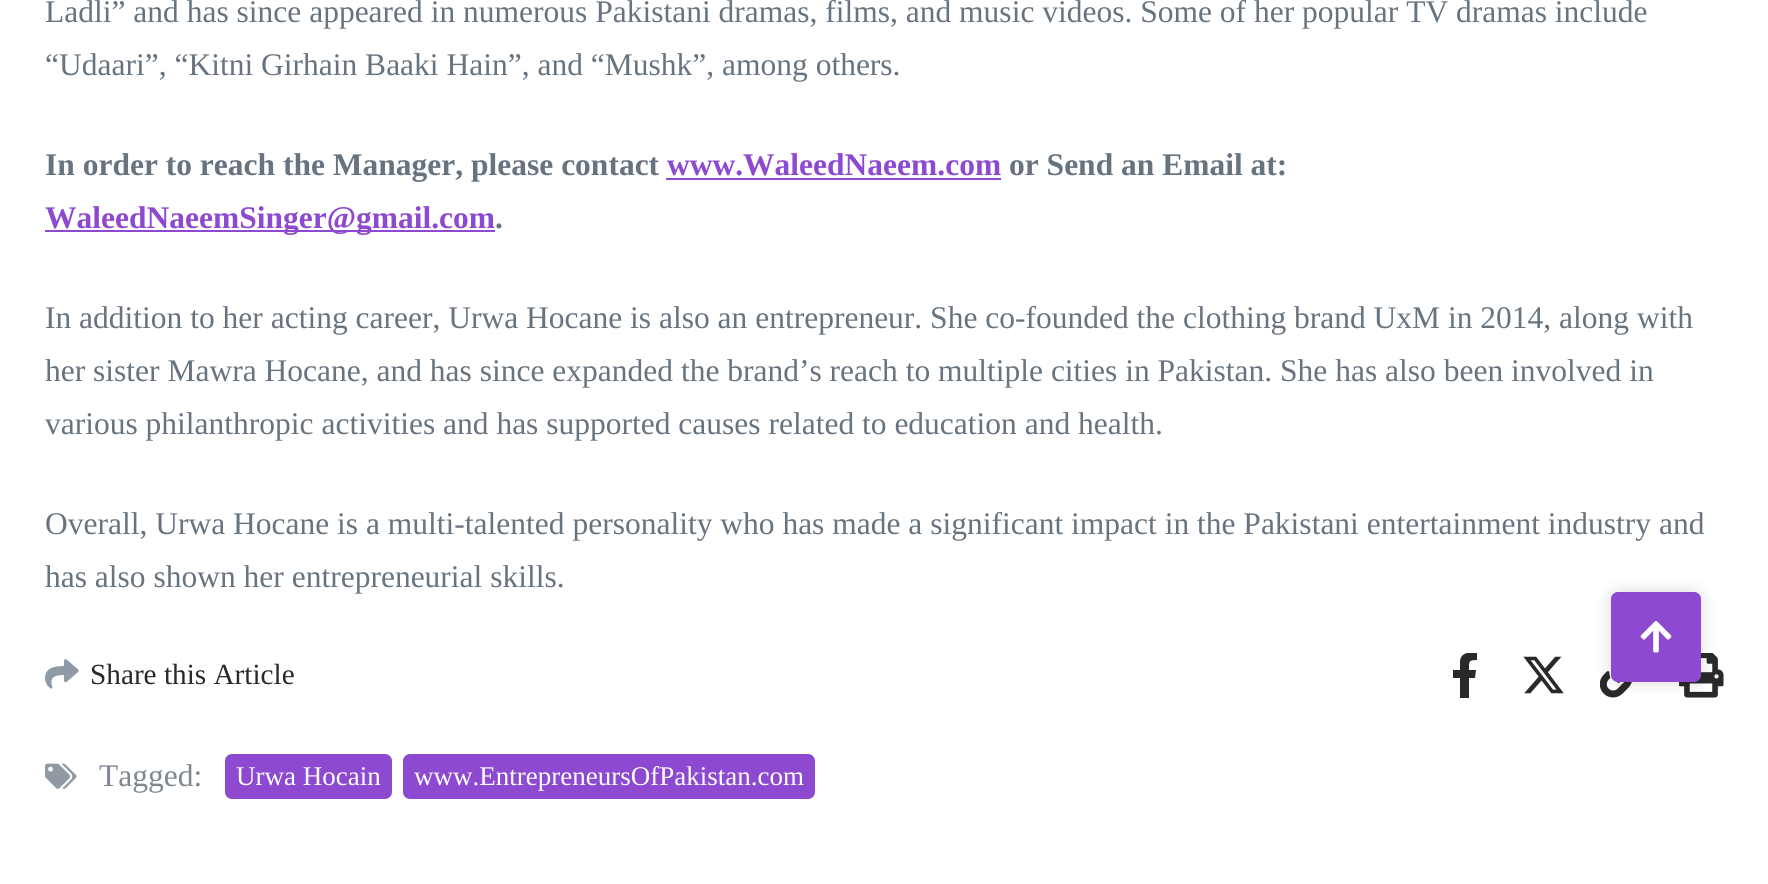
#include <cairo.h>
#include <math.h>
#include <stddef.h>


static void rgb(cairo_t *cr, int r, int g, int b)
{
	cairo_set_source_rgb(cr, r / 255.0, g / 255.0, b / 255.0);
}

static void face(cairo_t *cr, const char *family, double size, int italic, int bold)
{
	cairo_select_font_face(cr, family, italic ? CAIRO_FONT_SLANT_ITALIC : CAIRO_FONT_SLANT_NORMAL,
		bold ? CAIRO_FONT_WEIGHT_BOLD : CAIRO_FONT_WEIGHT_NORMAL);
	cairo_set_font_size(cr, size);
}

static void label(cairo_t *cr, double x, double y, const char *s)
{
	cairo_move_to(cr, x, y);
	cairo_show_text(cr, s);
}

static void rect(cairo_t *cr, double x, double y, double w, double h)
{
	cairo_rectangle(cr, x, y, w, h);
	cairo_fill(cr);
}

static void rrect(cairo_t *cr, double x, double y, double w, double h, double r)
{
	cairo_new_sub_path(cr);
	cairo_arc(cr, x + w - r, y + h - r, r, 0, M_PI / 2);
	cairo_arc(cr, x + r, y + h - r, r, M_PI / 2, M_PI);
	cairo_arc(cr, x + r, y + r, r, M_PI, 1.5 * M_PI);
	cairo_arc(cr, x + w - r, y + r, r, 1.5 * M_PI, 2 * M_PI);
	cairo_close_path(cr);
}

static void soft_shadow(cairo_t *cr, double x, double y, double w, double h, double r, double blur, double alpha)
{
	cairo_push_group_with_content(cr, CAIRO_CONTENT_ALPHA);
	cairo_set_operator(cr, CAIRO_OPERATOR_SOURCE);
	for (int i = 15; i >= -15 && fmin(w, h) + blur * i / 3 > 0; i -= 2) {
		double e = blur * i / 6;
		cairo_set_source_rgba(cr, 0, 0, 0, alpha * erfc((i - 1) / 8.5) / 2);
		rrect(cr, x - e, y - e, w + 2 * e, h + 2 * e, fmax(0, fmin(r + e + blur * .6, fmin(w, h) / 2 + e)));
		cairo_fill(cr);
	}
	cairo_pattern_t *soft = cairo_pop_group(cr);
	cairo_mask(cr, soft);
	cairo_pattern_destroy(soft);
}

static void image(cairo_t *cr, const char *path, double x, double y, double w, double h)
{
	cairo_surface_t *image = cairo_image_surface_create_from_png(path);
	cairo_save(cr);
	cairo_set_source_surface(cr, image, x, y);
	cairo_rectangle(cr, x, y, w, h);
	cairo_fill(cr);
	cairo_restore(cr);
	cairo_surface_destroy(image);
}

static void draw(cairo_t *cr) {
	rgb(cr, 255, 255, 255);
	cairo_paint(cr);
	face(cr, "Liberation Serif", 31.5, 0, 0);
	rgb(cr, 103, 115, 126);
	label(cr, 45, 22, "Ladli” and has since appeared in numerous Pakistani dramas, films, and music videos. Some of her popular TV dramas include");
	label(cr, 45, 75, "“Udaari”, “Kitni Girhain Baaki Hain”, and “Mushk”, among others.");
	face(cr, "Liberation Serif", 31.5, 0, 1);
	label(cr, 45, 175, "In order to reach the Manager, please contact");
	rgb(cr, 141, 73, 208);
	label(cr, 667, 175, "www.WaleedNaeem.com");
	rect(cr, 666, 178, 335, 2);
	rgb(cr, 103, 115, 126);
	label(cr, 1009, 175, "or Send an Email at:");
	rgb(cr, 141, 73, 208);
	rect(cr, 45, 230, 450, 2);
	label(cr, 45, 228, "WaleedNaeemSinger@gmail.com");
	rgb(cr, 103, 115, 126);
	label(cr, 495, 228, ".");
	face(cr, "Liberation Serif", 31.5, 0, 0);
	label(cr, 45, 328, "In addition to her acting career, Urwa Hocane is also an entrepreneur. She co-founded the clothing brand UxM in 2014, along with");
	label(cr, 45, 381, "her sister Mawra Hocane, and has since expanded the brand’s reach to multiple cities in Pakistan. She has also been involved in");
	label(cr, 45, 434, "various philanthropic activities and has supported causes related to education and health.");
	label(cr, 45, 534, "Overall, Urwa Hocane is a multi-talented personality who has made a significant impact in the Pakistani entertainment industry and");
	label(cr, 45, 587, "has also shown her entrepreneurial skills.");
	image(cr, "image0.png", 45, 659, 34, 30);
	face(cr, "Liberation Serif", 29.25, 0, 0);
	rgb(cr, 41, 41, 41);
	label(cr, 90, 684, "Share this Article");
	cairo_save(cr);
	cairo_rectangle(cr, 1442, 653, 45, 45);
	cairo_clip(cr);
	cairo_new_path(cr);
	cairo_move_to(cr, 1475, 678);
	cairo_line_to(cr, 1476, 670);
	cairo_line_to(cr, 1469, 670);
	cairo_curve_to(cr, 1469, 662, 1468, 660, 1477, 660);
	cairo_line_to(cr, 1477, 653);
	cairo_curve_to(cr, 1470, 652, 1461, 652, 1460, 661);
	cairo_line_to(cr, 1460, 670);
	cairo_line_to(cr, 1453, 670);
	cairo_line_to(cr, 1453, 678);
	cairo_line_to(cr, 1460, 678);
	cairo_line_to(cr, 1460, 698);
	cairo_line_to(cr, 1469, 698);
	cairo_line_to(cr, 1469, 678);
	cairo_close_path(cr);
	cairo_fill(cr);
	cairo_restore(cr);
	image(cr, "image1.png", 1523, 656, 41, 38);
	image(cr, "image2.png", 1600, 671, 32, 27);
	image(cr, "image3.png", 1679, 653, 45, 45);
	image(cr, "image4.png", 45, 763, 32, 26);
	face(cr, "Liberation Serif", 31.5, 0, 0);
	rgb(cr, 126, 136, 145);
	label(cr, 99, 786, "Tagged:");
	rgb(cr, 141, 73, 208);
	rrect(cr, 225, 754, 167, 45, 7);
	cairo_fill(cr);
	face(cr, "Liberation Serif", 27, 0, 0);
	rgb(cr, 255, 255, 255);
	label(cr, 236, 785, "Urwa Hocain");
	rgb(cr, 141, 73, 208);
	rrect(cr, 403, 754, 412, 45, 7);
	cairo_fill(cr);
	rgb(cr, 255, 255, 255);
	label(cr, 414, 785, "www.EntrepreneursOfPakistan.com");
	rgb(cr, 0, 0, 0);
	soft_shadow(cr, 1611, 592, 90, 90, 7, 8, 0.15);
	rgb(cr, 141, 73, 208);
	rrect(cr, 1611, 592, 90, 90, 7);
	cairo_fill(cr);
	image(cr, "image5.png", 1640, 621, 32, 32);
}

int main(void) {
	cairo_surface_t *surface = cairo_image_surface_create(CAIRO_FORMAT_RGB24, 1768, 884);
	cairo_t *cr = cairo_create(surface);
	cairo_font_options_t *options = cairo_font_options_create();
	cairo_font_options_set_hint_metrics(options, CAIRO_HINT_METRICS_OFF);
	cairo_font_options_set_hint_style(options, CAIRO_HINT_STYLE_NONE);
	cairo_set_font_options(cr, options);
	cairo_set_miter_limit(cr, 4);
	draw(cr);
	cairo_surface_write_to_png(surface, "render.png");
	cairo_font_options_destroy(options);
	cairo_destroy(cr);
	cairo_surface_destroy(surface);
	return 0;
}
